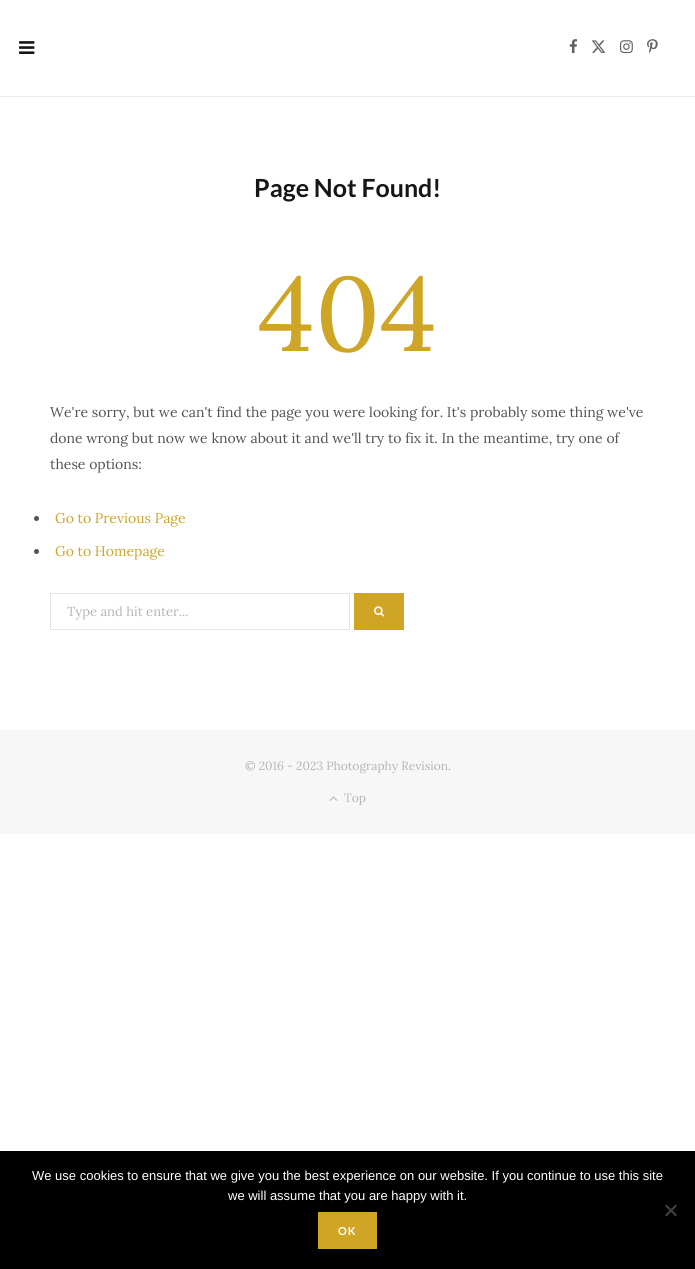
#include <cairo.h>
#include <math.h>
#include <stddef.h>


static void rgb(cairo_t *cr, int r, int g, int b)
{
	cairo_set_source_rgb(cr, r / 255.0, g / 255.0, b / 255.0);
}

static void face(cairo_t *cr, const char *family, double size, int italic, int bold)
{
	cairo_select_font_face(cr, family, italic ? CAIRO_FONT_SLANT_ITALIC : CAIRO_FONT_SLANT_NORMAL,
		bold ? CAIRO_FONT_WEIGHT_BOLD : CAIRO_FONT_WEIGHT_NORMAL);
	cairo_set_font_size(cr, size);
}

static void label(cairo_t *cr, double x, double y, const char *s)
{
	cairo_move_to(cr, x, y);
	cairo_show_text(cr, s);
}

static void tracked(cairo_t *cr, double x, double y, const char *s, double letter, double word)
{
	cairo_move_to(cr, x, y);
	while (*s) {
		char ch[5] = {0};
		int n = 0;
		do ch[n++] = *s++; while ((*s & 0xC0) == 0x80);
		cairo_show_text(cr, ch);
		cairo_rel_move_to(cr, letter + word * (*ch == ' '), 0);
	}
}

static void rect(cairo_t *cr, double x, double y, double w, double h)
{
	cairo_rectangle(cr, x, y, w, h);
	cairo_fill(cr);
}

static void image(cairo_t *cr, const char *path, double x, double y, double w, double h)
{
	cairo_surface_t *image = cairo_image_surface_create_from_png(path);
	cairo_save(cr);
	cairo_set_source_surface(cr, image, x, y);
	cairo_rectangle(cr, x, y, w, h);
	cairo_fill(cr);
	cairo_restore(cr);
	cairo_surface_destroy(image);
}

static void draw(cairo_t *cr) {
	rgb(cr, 255, 255, 255);
	cairo_paint(cr);
	rgb(cr, 235, 235, 235);
	rect(cr, 0, 96, 695, 1);
	image(cr, "image0.png", 19, 41, 16, 13);
	image(cr, "image1.png", 569, 39, 9, 15);
	image(cr, "image2.png", 591, 40, 15, 13);
	image(cr, "image3.png", 620, 40, 13, 14);
	image(cr, "image4.png", 647, 39, 11, 14);
	face(cr, "Lato", 25, 0, 1);
	rgb(cr, 22, 22, 22);
	label(cr, 254, 197, "Page Not Found!");
	face(cr, "Lora", 105, 0, 0);
	rgb(cr, 206, 165, 37);
	label(cr, 258, 351, "404");
	face(cr, "Lora", 14, 0, 0);
	rgb(cr, 83, 83, 83);
	label(cr, 50, 417, "We're sorry, but we can't find the page you were looking for. It's probably some thing we've");
	label(cr, 50, 443, "done wrong but now we know about it and we'll try to fix it. In the meantime, try one of");
	label(cr, 50, 469, "these options:");
	cairo_new_path(cr);
	cairo_arc(cr, 36.5, 518.5, 2.5, 0, 2 * M_PI);
	cairo_fill(cr);
	rgb(cr, 206, 165, 37);
	label(cr, 55, 523, "Go to Previous Page");
	rgb(cr, 83, 83, 83);
	cairo_new_path(cr);
	cairo_arc(cr, 36.5, 551.5, 2.5, 0, 2 * M_PI);
	cairo_fill(cr);
	rgb(cr, 206, 165, 37);
	label(cr, 55, 556, "Go to Homepage");
	cairo_rectangle(cr, 50.5, 593.5, 299, 36);
	rgb(cr, 229, 229, 229);
	cairo_set_line_width(cr, 1);
	cairo_stroke(cr);
	face(cr, "Lora", 13, 0, 0);
	rgb(cr, 180, 180, 180);
	label(cr, 67, 616, "Type and hit enter...");
	rgb(cr, 206, 165, 37);
	rect(cr, 354, 593, 50, 37);
	image(cr, "image5.png", 374, 606, 11, 11);
	rgb(cr, 247, 247, 247);
	rect(cr, 0, 730, 695, 104);
	face(cr, "Lora", 12, 0, 0);
	rgb(cr, 180, 180, 180);
	label(cr, 245, 770, "© 2016 - 2023 Photography Revision.");
	image(cr, "image6.png", 329, 796, 9, 5);
	label(cr, 344, 802, "Top");
	rgb(cr, 0, 0, 0);
	rect(cr, 0, 1151, 695, 118);
	face(cr, "Liberation Sans", 13, 0, 0);
	rgb(cr, 255, 255, 255);
	label(cr, 32, 1180, "We use cookies to ensure that we give you the best experience on our website. If you continue to use this site");
	label(cr, 228, 1200, "we will assume that you are happy with it.");
	rgb(cr, 64, 64, 64);
	cairo_new_path(cr);
	cairo_move_to(cr, 675.5, 1204.5);
	cairo_line_to(cr, 677, 1206);
	cairo_line_to(cr, 666.5, 1216.5);
	cairo_line_to(cr, 665, 1215);
	cairo_close_path(cr);
	cairo_fill(cr);
	cairo_new_path(cr);
	cairo_move_to(cr, 665, 1206);
	cairo_line_to(cr, 666.5, 1204.5);
	cairo_line_to(cr, 677, 1215);
	cairo_line_to(cr, 675.5, 1216.5);
	cairo_close_path(cr);
	cairo_fill(cr);
	rgb(cr, 206, 165, 37);
	rect(cr, 318, 1212, 59, 37);
	face(cr, "Lato", 11, 0, 1);
	rgb(cr, 255, 255, 255);
	tracked(cr, 338, 1235, "OK", 1, 0);
}

int main(void) {
	cairo_surface_t *surface = cairo_image_surface_create(CAIRO_FORMAT_RGB24, 695, 1269);
	cairo_t *cr = cairo_create(surface);
	cairo_font_options_t *options = cairo_font_options_create();
	cairo_font_options_set_hint_metrics(options, CAIRO_HINT_METRICS_OFF);
	cairo_font_options_set_hint_style(options, CAIRO_HINT_STYLE_NONE);
	cairo_set_font_options(cr, options);
	cairo_set_miter_limit(cr, 4);
	draw(cr);
	cairo_surface_write_to_png(surface, "render.png");
	cairo_font_options_destroy(options);
	cairo_destroy(cr);
	cairo_surface_destroy(surface);
	return 0;
}
